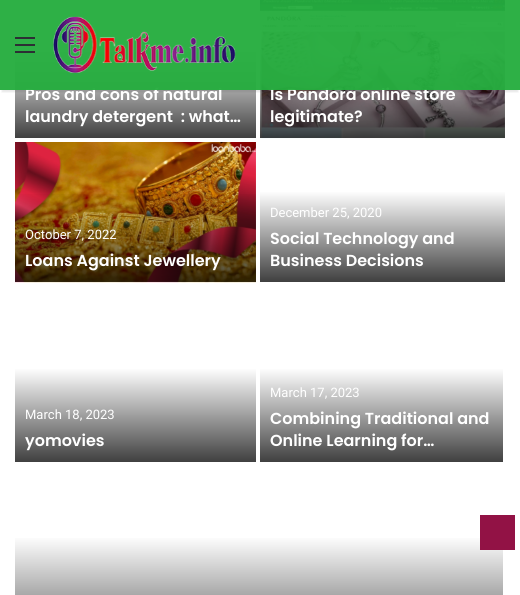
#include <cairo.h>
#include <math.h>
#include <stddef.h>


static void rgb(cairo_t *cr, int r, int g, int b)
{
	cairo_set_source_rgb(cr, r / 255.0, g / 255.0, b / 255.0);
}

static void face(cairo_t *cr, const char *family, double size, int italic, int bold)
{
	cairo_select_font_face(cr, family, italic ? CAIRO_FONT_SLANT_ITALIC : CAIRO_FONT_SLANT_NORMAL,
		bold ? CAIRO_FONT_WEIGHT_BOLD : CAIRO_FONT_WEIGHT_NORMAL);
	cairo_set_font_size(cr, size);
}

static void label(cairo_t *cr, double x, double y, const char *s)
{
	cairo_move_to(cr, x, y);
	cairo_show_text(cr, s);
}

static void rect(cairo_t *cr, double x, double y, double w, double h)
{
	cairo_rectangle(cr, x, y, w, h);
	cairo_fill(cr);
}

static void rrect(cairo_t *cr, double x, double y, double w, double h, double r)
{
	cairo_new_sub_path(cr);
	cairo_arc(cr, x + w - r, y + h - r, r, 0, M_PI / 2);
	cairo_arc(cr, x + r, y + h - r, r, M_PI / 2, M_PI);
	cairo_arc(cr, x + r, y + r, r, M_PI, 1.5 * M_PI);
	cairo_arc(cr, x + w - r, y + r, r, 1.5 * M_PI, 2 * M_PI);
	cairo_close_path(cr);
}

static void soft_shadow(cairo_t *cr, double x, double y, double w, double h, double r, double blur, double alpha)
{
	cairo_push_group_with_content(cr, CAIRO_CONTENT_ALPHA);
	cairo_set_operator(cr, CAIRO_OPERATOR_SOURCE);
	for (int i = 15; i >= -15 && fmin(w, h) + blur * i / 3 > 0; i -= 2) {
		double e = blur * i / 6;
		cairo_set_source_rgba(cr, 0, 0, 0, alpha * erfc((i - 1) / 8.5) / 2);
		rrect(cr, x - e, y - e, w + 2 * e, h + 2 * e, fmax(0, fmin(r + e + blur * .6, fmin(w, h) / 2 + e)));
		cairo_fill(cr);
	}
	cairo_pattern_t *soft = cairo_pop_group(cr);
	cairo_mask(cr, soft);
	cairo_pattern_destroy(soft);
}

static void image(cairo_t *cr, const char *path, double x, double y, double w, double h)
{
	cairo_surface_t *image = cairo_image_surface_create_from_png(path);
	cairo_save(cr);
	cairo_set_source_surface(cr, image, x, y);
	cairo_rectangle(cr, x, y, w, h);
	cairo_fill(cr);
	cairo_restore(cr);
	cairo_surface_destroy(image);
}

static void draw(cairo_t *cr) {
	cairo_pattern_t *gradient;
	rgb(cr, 255, 255, 255);
	cairo_paint(cr);
	gradient = cairo_pattern_create_linear(136, 47, 136, 138);
	cairo_pattern_add_color_stop_rgba(gradient, 0, 1, 1, 1, 1);
	cairo_pattern_add_color_stop_rgba(gradient, 1, 0.251, 0.251, 0.251, 1);
	cairo_set_source(cr, gradient);
	cairo_pattern_destroy(gradient);
	rect(cr, 15, 48, 241, 90);
	image(cr, "image1.png", 260, 0, 245, 139);
	gradient = cairo_pattern_create_linear(383, 47, 383, 138);
	cairo_pattern_add_color_stop_rgba(gradient, 0, 0, 0, 0, 0);
	cairo_pattern_add_color_stop_rgba(gradient, 1, 0, 0, 0, 0.75);
	cairo_set_source(cr, gradient);
	cairo_pattern_destroy(gradient);
	rect(cr, 260, 50, 245, 88);
	cairo_save(cr);
	cairo_rectangle(cr, 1, 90, 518, 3);
	cairo_clip(cr);
	rgb(cr, 0, 0, 0);
	soft_shadow(cr, 2, 6, 516, 86, 0, 1, 0.1);
	cairo_restore(cr);
	face(cr, "Poppins SemiBold", 16, 0, 0);
	rgb(cr, 255, 255, 255);
	label(cr, 25, 100, "Pros and cons of natural");
	label(cr, 270, 100, "Is Pandora online store");
	cairo_set_source_rgba(cr, 0.141, 0.678, 0.239, 0.95);
	rect(cr, 0, 0, 520, 90);
	rgb(cr, 44, 47, 52);
	rect(cr, 15, 44, 20, 2);
	rect(cr, 15, 37, 20, 2);
	rect(cr, 15, 51, 20, 2);
	image(cr, "image0.png", 53, 16, 183, 57);
	rgb(cr, 255, 255, 255);
	label(cr, 25, 122, "laundry detergent  : what…");
	label(cr, 270, 122, "legitimate?");
	image(cr, "image2.png", 15, 142, 241, 141);
	gradient = cairo_pattern_create_linear(136, 191, 136, 282);
	cairo_pattern_add_color_stop_rgba(gradient, 0, 0, 0, 0, 0);
	cairo_pattern_add_color_stop_rgba(gradient, 1, 0, 0, 0, 0.75);
	cairo_set_source(cr, gradient);
	cairo_pattern_destroy(gradient);
	rect(cr, 15, 194, 241, 88);
	face(cr, "Roboto", 13, 0, 0);
	rgb(cr, 255, 255, 255);
	label(cr, 25, 239, "October 7, 2022");
	face(cr, "Poppins SemiBold", 16, 0, 0);
	label(cr, 25, 266, "Loans Against Jewellery");
	gradient = cairo_pattern_create_linear(383, 191, 383, 282);
	cairo_pattern_add_color_stop_rgba(gradient, 0, 1, 1, 1, 1);
	cairo_pattern_add_color_stop_rgba(gradient, 1, 0.251, 0.251, 0.251, 1);
	cairo_set_source(cr, gradient);
	cairo_pattern_destroy(gradient);
	rect(cr, 260, 192, 245, 90);
	face(cr, "Roboto", 13, 0, 0);
	rgb(cr, 255, 255, 255);
	label(cr, 270, 217, "December 25, 2020");
	face(cr, "Poppins SemiBold", 16, 0, 0);
	label(cr, 270, 244, "Social Technology and");
	label(cr, 270, 266, "Business Decisions");
	gradient = cairo_pattern_create_linear(136, 368, 136, 462);
	cairo_pattern_add_color_stop_rgba(gradient, 0, 1, 1, 1, 1);
	cairo_pattern_add_color_stop_rgba(gradient, 1, 0.251, 0.251, 0.251, 1);
	cairo_set_source(cr, gradient);
	cairo_pattern_destroy(gradient);
	rect(cr, 15, 369, 241, 93);
	face(cr, "Roboto", 13, 0, 0);
	rgb(cr, 255, 255, 255);
	label(cr, 25, 419, "March 18, 2023");
	face(cr, "Poppins SemiBold", 16, 0, 0);
	label(cr, 25, 446, "yomovies");
	gradient = cairo_pattern_create_linear(382, 368, 382, 462);
	cairo_pattern_add_color_stop_rgba(gradient, 0, 1, 1, 1, 1);
	cairo_pattern_add_color_stop_rgba(gradient, 1, 0.251, 0.251, 0.251, 1);
	cairo_set_source(cr, gradient);
	cairo_pattern_destroy(gradient);
	rect(cr, 260, 369, 243, 93);
	face(cr, "Roboto", 13, 0, 0);
	rgb(cr, 255, 255, 255);
	label(cr, 270, 397, "March 17, 2023");
	face(cr, "Poppins SemiBold", 16, 0, 0);
	label(cr, 270, 424, "Combining Traditional and");
	label(cr, 270, 446, "Online Learning for…");
	gradient = cairo_pattern_create_linear(259, 536, 259, 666);
	cairo_pattern_add_color_stop_rgba(gradient, 0, 1, 1, 1, 1);
	cairo_pattern_add_color_stop_rgba(gradient, 1, 0.251, 0.251, 0.251, 1);
	cairo_set_source(cr, gradient);
	cairo_pattern_destroy(gradient);
	rect(cr, 15, 538, 488, 57);
	rgb(cr, 146, 18, 69);
	rect(cr, 480, 515, 35, 35);
}

int main(void) {
	cairo_surface_t *surface = cairo_image_surface_create(CAIRO_FORMAT_RGB24, 520, 595);
	cairo_t *cr = cairo_create(surface);
	cairo_font_options_t *options = cairo_font_options_create();
	cairo_font_options_set_hint_metrics(options, CAIRO_HINT_METRICS_OFF);
	cairo_font_options_set_hint_style(options, CAIRO_HINT_STYLE_NONE);
	cairo_set_font_options(cr, options);
	cairo_set_miter_limit(cr, 4);
	draw(cr);
	cairo_surface_write_to_png(surface, "render.png");
	cairo_font_options_destroy(options);
	cairo_destroy(cr);
	cairo_surface_destroy(surface);
	return 0;
}
